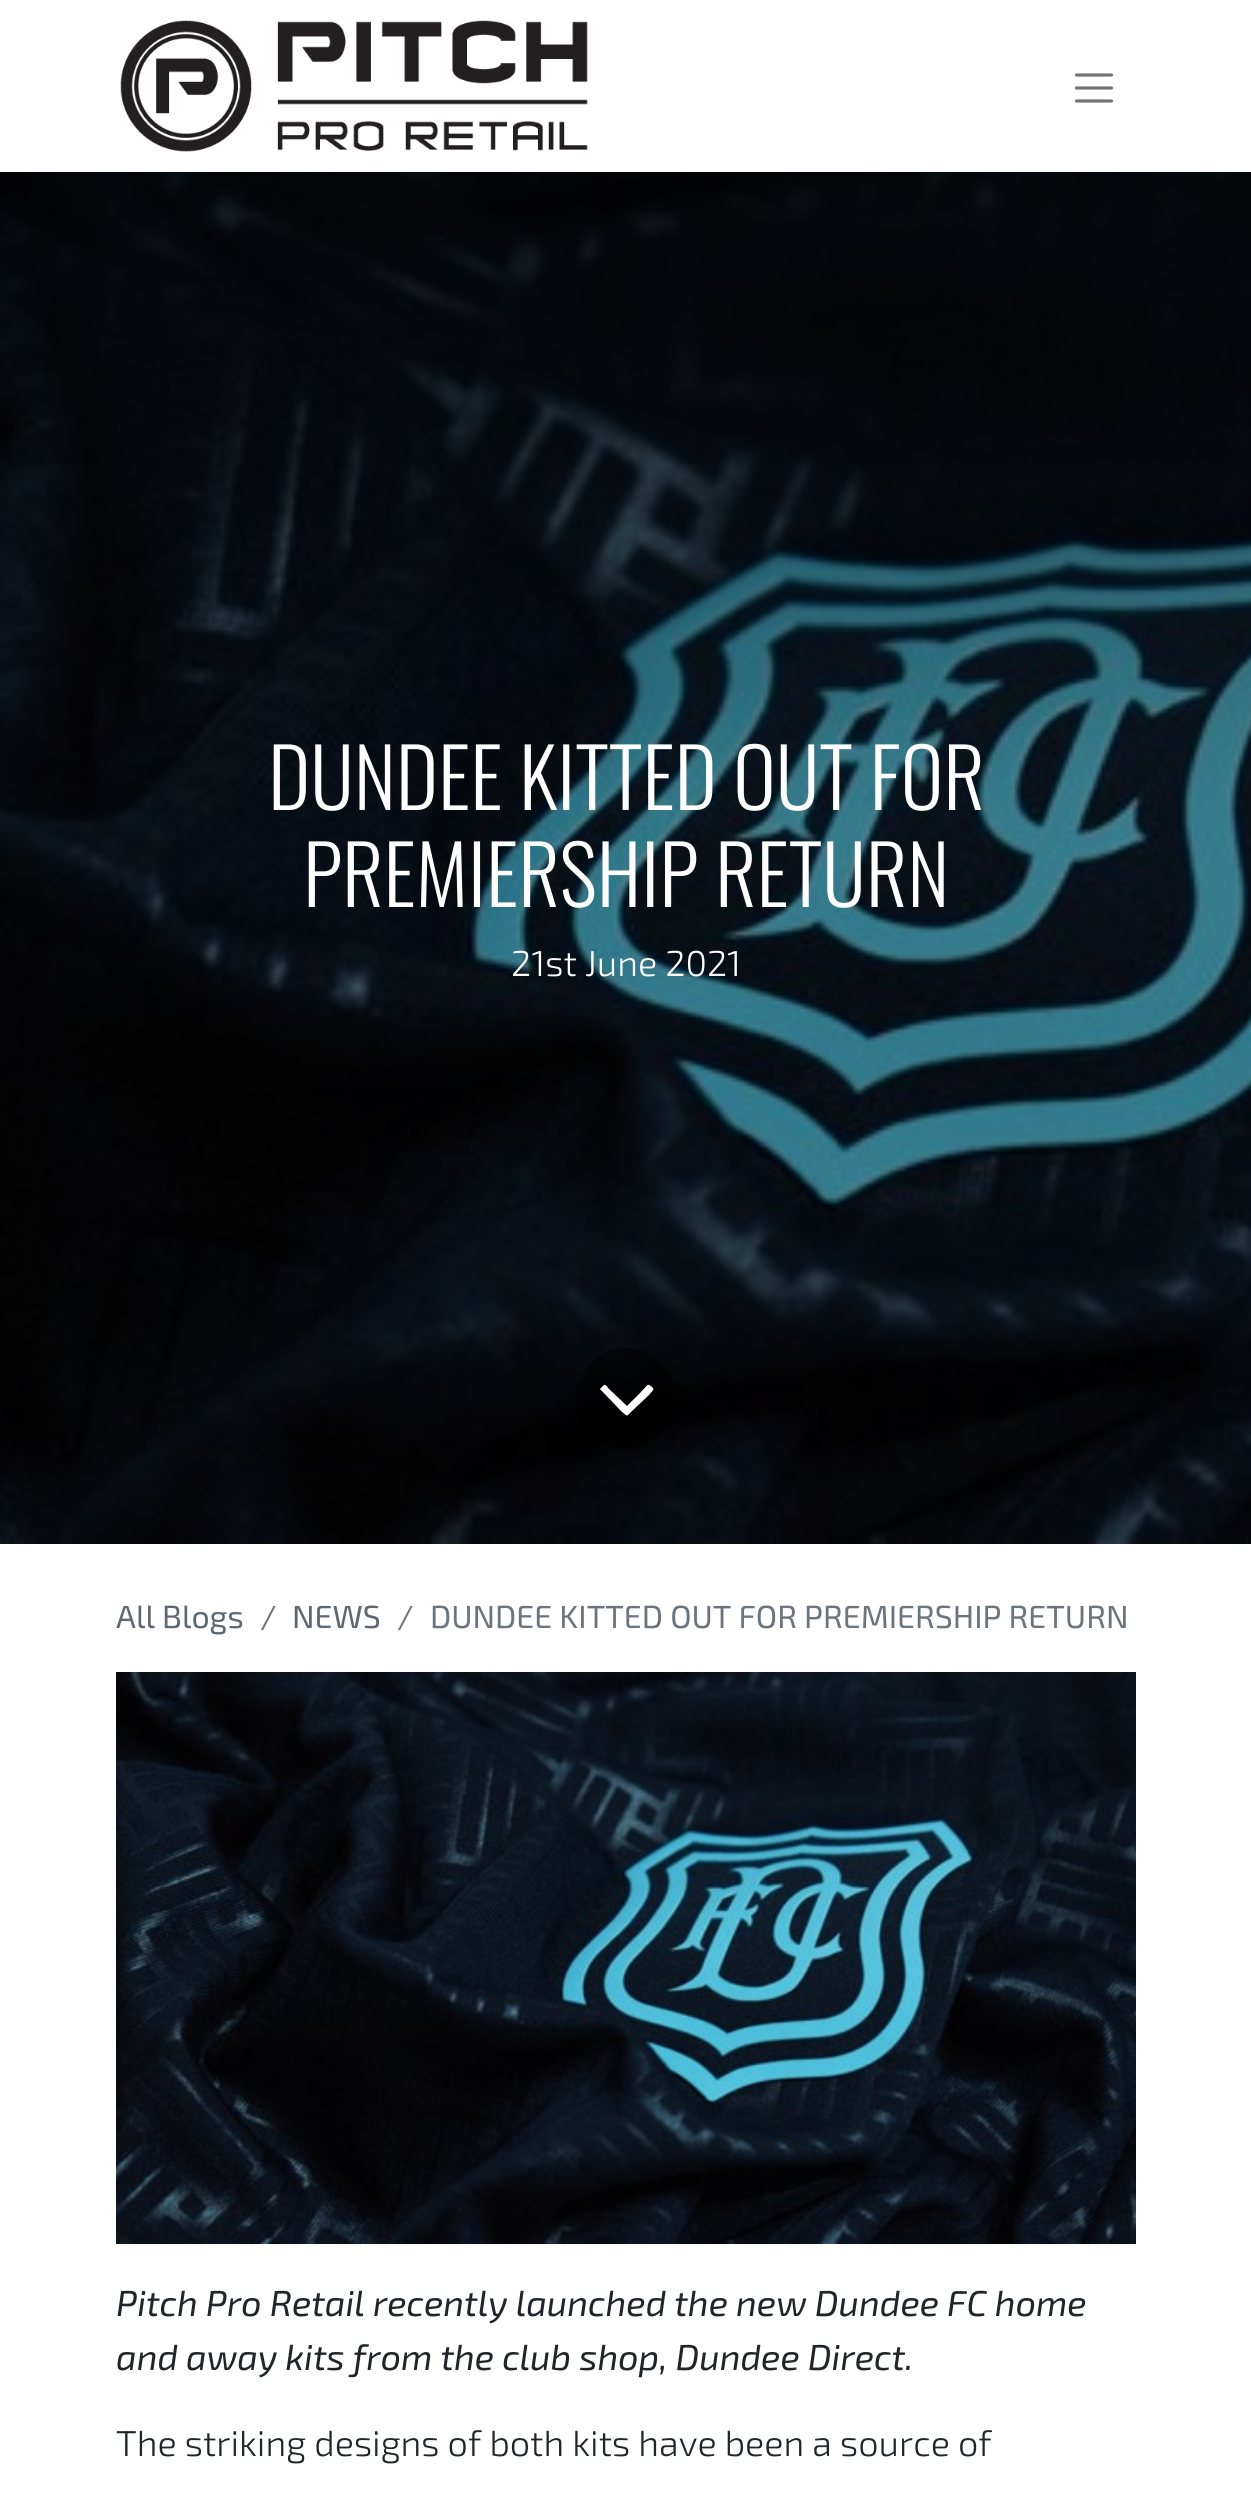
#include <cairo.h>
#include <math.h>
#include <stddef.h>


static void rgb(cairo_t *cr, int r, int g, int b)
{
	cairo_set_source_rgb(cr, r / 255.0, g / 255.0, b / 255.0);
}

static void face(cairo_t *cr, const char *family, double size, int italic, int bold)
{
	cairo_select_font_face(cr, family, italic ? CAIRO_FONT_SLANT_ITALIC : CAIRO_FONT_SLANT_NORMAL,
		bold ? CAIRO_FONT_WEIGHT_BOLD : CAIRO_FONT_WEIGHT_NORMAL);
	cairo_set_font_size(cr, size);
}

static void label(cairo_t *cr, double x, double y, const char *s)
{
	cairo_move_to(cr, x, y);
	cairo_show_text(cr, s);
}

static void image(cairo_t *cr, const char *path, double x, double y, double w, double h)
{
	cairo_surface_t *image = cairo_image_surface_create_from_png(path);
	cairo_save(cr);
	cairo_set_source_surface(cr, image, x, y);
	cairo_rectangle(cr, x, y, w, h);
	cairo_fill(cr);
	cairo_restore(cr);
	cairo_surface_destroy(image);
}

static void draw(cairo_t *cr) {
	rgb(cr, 255, 255, 255);
	cairo_paint(cr);
	image(cr, "image0.png", 120, 20, 468, 132);
	cairo_new_path(cr);
	cairo_move_to(cr, 1076.5, 75);
	cairo_line_to(cr, 1111.5, 75);
	cairo_move_to(cr, 1076.5, 88);
	cairo_line_to(cr, 1111.5, 88);
	cairo_move_to(cr, 1076.5, 101);
	cairo_line_to(cr, 1111.5, 101);
	rgb(cr, 115, 115, 115);
	cairo_set_line_width(cr, 3.2);
	cairo_set_line_cap(cr, CAIRO_LINE_CAP_ROUND);
	cairo_stroke(cr);
	image(cr, "image1.png", 0, 172, 1251, 1372);
	face(cr, "Oswald Light", 81, 0, 0);
	rgb(cr, 255, 255, 255);
	label(cr, 268, 810, "DUNDEE KITTED OUT FOR");
	label(cr, 303, 907, "PREMIERSHIP RETURN");
	face(cr, "Exo 2 Light", 36, 0, 0);
	label(cr, 511, 976, "21st June 2021");
	cairo_set_source_rgba(cr, 0, 0, 0, 0.5);
	cairo_new_path(cr);
	cairo_arc(cr, 626, 1398, 50, 0, 2 * M_PI);
	cairo_fill(cr);
	rgb(cr, 255, 255, 255);
	cairo_new_path(cr);
	cairo_move_to(cr, 653, 1388);
	cairo_curve_to(cr, 655, 1390, 649, 1394, 649, 1395);
	cairo_line_to(cr, 632, 1411);
	cairo_curve_to(cr, 626, 1417, 628, 1417, 621, 1411);
	cairo_line_to(cr, 601, 1390);
	cairo_curve_to(cr, 599, 1389, 601, 1388, 602, 1387);
	cairo_curve_to(cr, 605, 1383, 606, 1385, 609, 1389);
	cairo_line_to(cr, 627, 1406);
	cairo_line_to(cr, 641, 1392);
	cairo_curve_to(cr, 648, 1385, 647, 1382, 653, 1388);
	cairo_close_path(cr);
	cairo_fill(cr);
	face(cr, "Exo 2", 32, 0, 0);
	rgb(cr, 95, 104, 114);
	label(cr, 116, 1628, "All Blogs");
	rgb(cr, 108, 117, 125);
	label(cr, 260, 1628, "/");
	rgb(cr, 95, 104, 114);
	label(cr, 292, 1628, "NEWS");
	rgb(cr, 108, 117, 125);
	label(cr, 397, 1628, "/");
	label(cr, 430, 1628, "DUNDEE KITTED OUT FOR PREMIERSHIP RETURN");
	image(cr, "image2.png", 116, 1672, 1020, 572);
	face(cr, "Exo 2", 36, 1, 0);
	rgb(cr, 33, 37, 41);
	label(cr, 116, 2316, "Pitch Pro Retail recently launched the new Dundee FC home");
	label(cr, 116, 2370, "and away kits from the club shop, Dundee Direct.");
	face(cr, "Exo 2 Light", 36, 0, 0);
	label(cr, 116, 2456, "The striking designs of both kits have been a source of");
}

int main(void) {
	cairo_surface_t *surface = cairo_image_surface_create(CAIRO_FORMAT_RGB24, 1251, 2493);
	cairo_t *cr = cairo_create(surface);
	cairo_font_options_t *options = cairo_font_options_create();
	cairo_font_options_set_hint_metrics(options, CAIRO_HINT_METRICS_OFF);
	cairo_font_options_set_hint_style(options, CAIRO_HINT_STYLE_NONE);
	cairo_set_font_options(cr, options);
	cairo_set_miter_limit(cr, 4);
	draw(cr);
	cairo_surface_write_to_png(surface, "render.png");
	cairo_font_options_destroy(options);
	cairo_destroy(cr);
	cairo_surface_destroy(surface);
	return 0;
}
